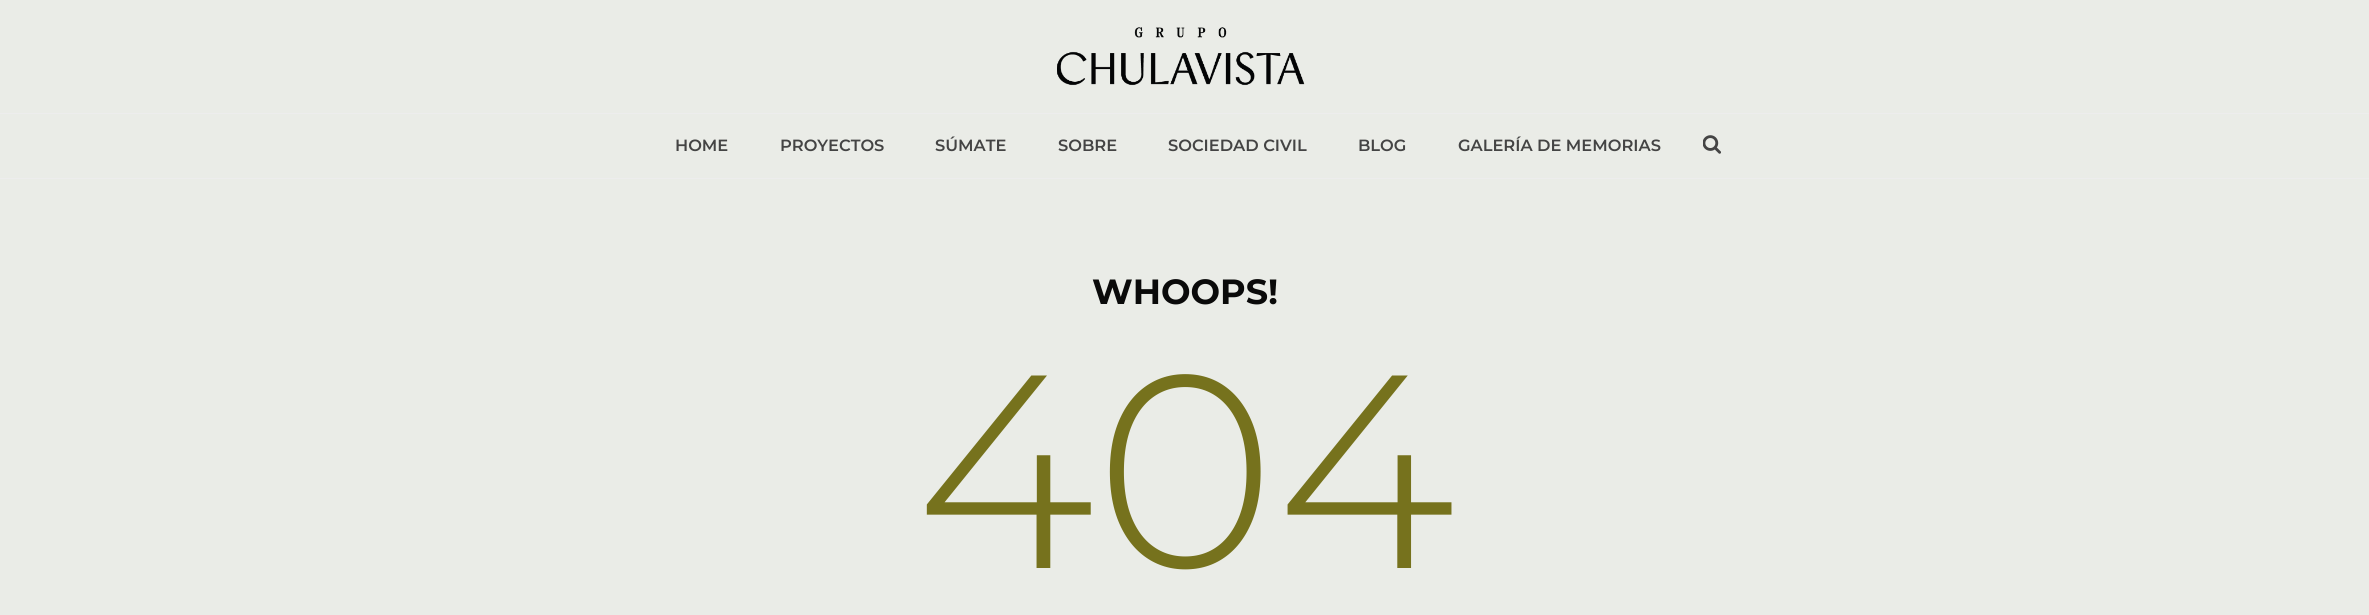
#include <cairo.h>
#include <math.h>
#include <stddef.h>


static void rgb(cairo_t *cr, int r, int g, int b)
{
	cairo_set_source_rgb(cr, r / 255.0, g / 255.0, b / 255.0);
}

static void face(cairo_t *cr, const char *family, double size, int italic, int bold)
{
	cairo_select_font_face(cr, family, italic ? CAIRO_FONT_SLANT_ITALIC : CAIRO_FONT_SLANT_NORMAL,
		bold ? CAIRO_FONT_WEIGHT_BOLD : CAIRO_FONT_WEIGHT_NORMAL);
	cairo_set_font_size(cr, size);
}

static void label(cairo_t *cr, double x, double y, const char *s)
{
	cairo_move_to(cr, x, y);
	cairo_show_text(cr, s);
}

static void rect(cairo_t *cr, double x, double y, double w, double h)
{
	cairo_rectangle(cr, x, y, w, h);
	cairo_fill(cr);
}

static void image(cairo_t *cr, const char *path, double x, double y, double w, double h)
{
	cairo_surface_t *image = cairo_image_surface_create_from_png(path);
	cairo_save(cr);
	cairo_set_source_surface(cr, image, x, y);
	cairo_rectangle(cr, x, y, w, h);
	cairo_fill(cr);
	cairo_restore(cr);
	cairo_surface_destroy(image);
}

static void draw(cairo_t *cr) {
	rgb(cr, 234, 236, 231);
	cairo_paint(cr);
	rgb(cr, 237, 237, 237);
	rect(cr, 0, 178, 2369, 1);
	image(cr, "image0.png", 1057, 27, 248, 59);
	rect(cr, 0, 113, 2369, 1);
	face(cr, "Montserrat SemiBold", 16.25, 0, 0);
	rgb(cr, 68, 68, 68);
	label(cr, 675, 151, "HOME");
	label(cr, 780, 151, "PROYECTOS");
	label(cr, 935, 151, "SÚMATE");
	label(cr, 1058, 151, "SOBRE");
	label(cr, 1168, 151, "SOCIEDAD CIVIL");
	label(cr, 1358, 151, "BLOG");
	label(cr, 1458, 151, "GALERÍA DE MEMORIAS");
	image(cr, "image1.png", 1703, 135, 18, 19);
	face(cr, "Montserrat", 35, 0, 1);
	rgb(cr, 10, 10, 10);
	label(cr, 1092, 304, "WHOOPS!");
	face(cr, "Montserrat Light", 275, 0, 0);
	rgb(cr, 118, 114, 29);
	label(cr, 915, 568, "404");
}

int main(void) {
	cairo_surface_t *surface = cairo_image_surface_create(CAIRO_FORMAT_RGB24, 2369, 615);
	cairo_t *cr = cairo_create(surface);
	cairo_font_options_t *options = cairo_font_options_create();
	cairo_font_options_set_hint_metrics(options, CAIRO_HINT_METRICS_OFF);
	cairo_font_options_set_hint_style(options, CAIRO_HINT_STYLE_NONE);
	cairo_set_font_options(cr, options);
	cairo_set_miter_limit(cr, 4);
	draw(cr);
	cairo_surface_write_to_png(surface, "render.png");
	cairo_font_options_destroy(options);
	cairo_destroy(cr);
	cairo_surface_destroy(surface);
	return 0;
}
